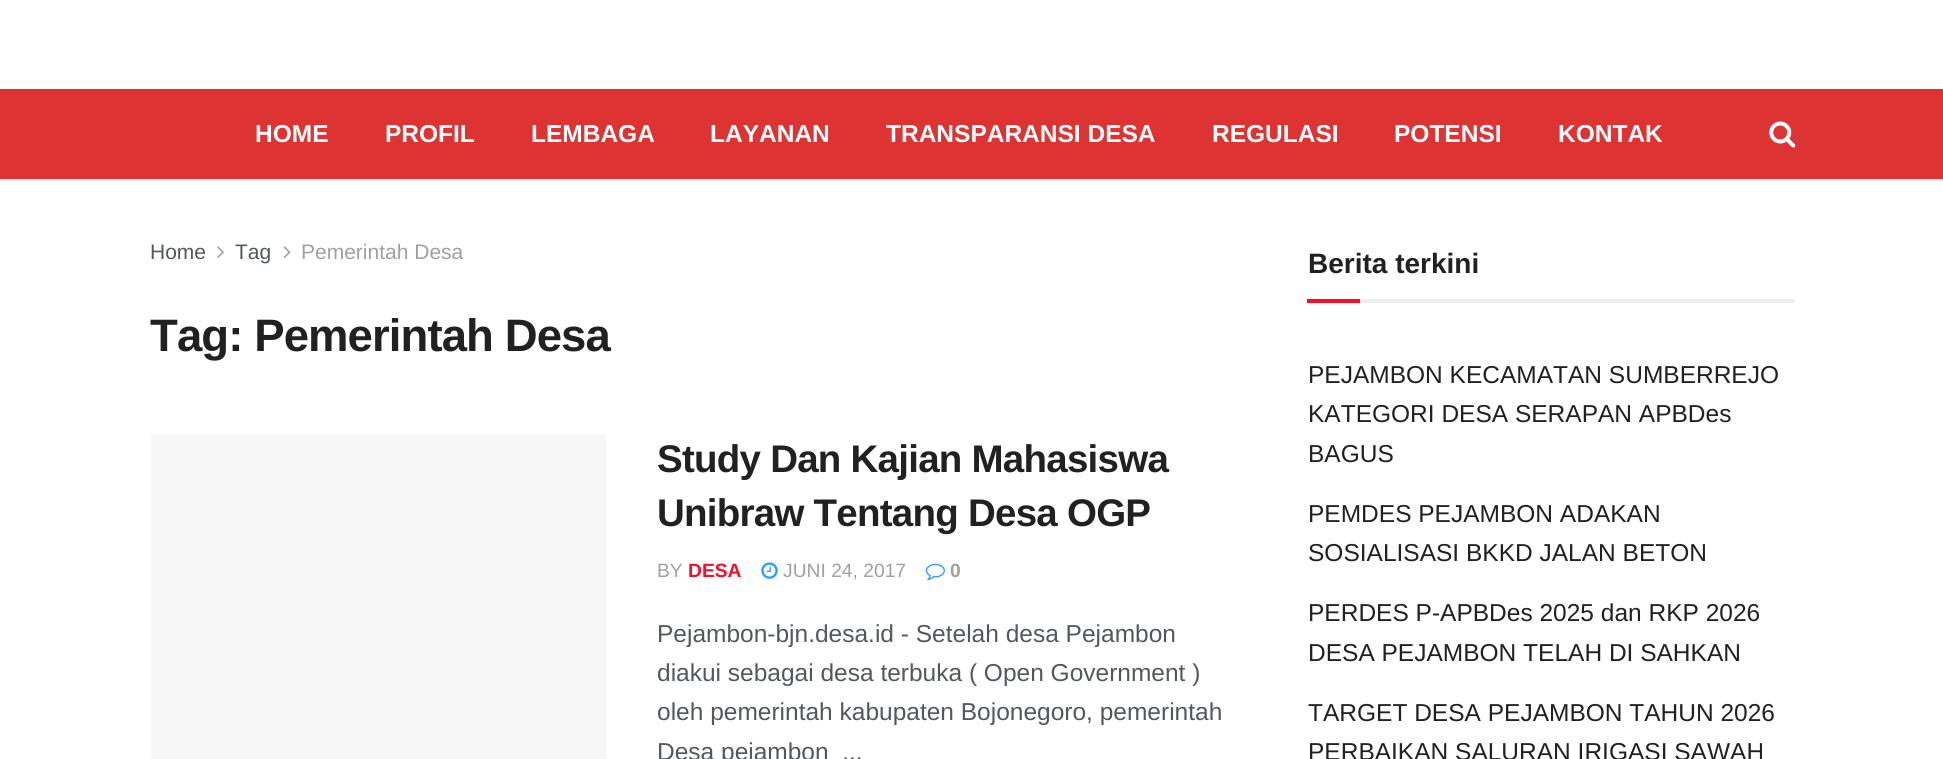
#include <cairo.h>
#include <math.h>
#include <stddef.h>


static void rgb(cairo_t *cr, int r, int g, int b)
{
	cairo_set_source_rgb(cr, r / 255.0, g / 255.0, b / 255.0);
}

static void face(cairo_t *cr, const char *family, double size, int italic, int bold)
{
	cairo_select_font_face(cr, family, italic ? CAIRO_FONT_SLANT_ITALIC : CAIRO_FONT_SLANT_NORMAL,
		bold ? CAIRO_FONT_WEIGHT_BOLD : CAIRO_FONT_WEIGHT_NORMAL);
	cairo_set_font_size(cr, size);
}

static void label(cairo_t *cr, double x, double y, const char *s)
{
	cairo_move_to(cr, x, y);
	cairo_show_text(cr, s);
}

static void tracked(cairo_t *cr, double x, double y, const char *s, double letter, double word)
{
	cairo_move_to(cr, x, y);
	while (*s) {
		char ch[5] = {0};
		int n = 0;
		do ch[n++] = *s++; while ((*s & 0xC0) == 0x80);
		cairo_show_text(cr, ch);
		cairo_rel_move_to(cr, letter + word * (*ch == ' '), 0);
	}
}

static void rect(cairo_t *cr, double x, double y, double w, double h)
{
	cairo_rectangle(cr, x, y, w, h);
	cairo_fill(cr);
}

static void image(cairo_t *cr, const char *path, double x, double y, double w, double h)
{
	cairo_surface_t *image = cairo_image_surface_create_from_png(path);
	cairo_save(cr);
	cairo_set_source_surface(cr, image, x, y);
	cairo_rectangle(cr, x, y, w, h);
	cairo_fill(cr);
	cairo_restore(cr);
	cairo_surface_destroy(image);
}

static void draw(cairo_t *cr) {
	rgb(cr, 255, 255, 255);
	cairo_paint(cr);
	rgb(cr, 221, 51, 51);
	rect(cr, 0, 89, 1943, 90);
	rgb(cr, 232, 232, 232);
	rect(cr, 0, 179, 1943, 2);
	face(cr, "Liberation Sans", 24.5, 0, 1);
	rgb(cr, 255, 255, 255);
	label(cr, 255, 142, "HOME");
	label(cr, 385, 142, "PROFIL");
	label(cr, 531, 142, "LEMBAGA");
	label(cr, 710, 142, "LAYANAN");
	label(cr, 886, 142, "TRANSPARANSI DESA");
	label(cr, 1212, 142, "REGULASI");
	label(cr, 1394, 142, "POTENSI");
	label(cr, 1558, 142, "KONTAK");
	image(cr, "image0.png", 1769, 121, 27, 27);
	face(cr, "Liberation Sans", 21, 0, 0);
	rgb(cr, 83, 88, 92);
	label(cr, 150, 259, "Home");
	image(cr, "image1.png", 217, 246, 7, 12);
	label(cr, 235, 259, "Tag");
	image(cr, "image2.png", 283, 246, 8, 12);
	rgb(cr, 160, 160, 160);
	label(cr, 301, 259, "Pemerintah Desa");
	face(cr, "Liberation Sans", 45.5, 0, 1);
	rgb(cr, 33, 33, 33);
	tracked(cr, 150, 351, "Tag: Pemerintah Desa", -0.9, 0);
	rgb(cr, 247, 247, 247);
	rect(cr, 151, 434, 455, 325);
	face(cr, "Liberation Sans", 38.5, 0, 1);
	rgb(cr, 33, 33, 33);
	tracked(cr, 657, 472, "Study Dan Kajian Mahasiswa", -0.75, 0);
	tracked(cr, 657, 526, "Unibraw Tentang Desa OGP", -0.75, 0);
	face(cr, "Liberation Sans", 19.25, 0, 0);
	rgb(cr, 160, 160, 160);
	label(cr, 657, 577, "BY");
	face(cr, "Liberation Sans", 19.25, 0, 1);
	rgb(cr, 247, 13, 40);
	label(cr, 688, 577, "DESA");
	image(cr, "image3.png", 761, 562, 17, 17);
	face(cr, "Liberation Sans", 19.25, 0, 0);
	rgb(cr, 160, 160, 160);
	label(cr, 783, 577, "JUNI 24, 2017");
	image(cr, "image4.png", 925, 563, 20, 18);
	face(cr, "Liberation Sans", 19.25, 0, 1);
	label(cr, 950, 577, "0");
	face(cr, "Liberation Sans", 24.5, 0, 0);
	rgb(cr, 83, 88, 92);
	label(cr, 657, 642, "Pejambon-bjn.desa.id - Setelah desa Pejambon");
	label(cr, 657, 681, "diakui sebagai desa terbuka ( Open Government )");
	label(cr, 657, 720, "oleh pemerintah kabupaten Bojonegoro, pemerintah");
	label(cr, 657, 760, "Desa pejambon  ...");
	rgb(cr, 238, 238, 238);
	rect(cr, 1360, 299, 434, 4);
	face(cr, "Liberation Sans", 28, 0, 1);
	rgb(cr, 33, 33, 33);
	label(cr, 1308, 273, "Berita terkini");
	rgb(cr, 247, 13, 40);
	rect(cr, 1307, 299, 53, 4);
	face(cr, "Liberation Sans", 24.5, 0, 0);
	rgb(cr, 33, 33, 33);
	label(cr, 1308, 383, "PEJAMBON KECAMATAN SUMBERREJO");
	label(cr, 1308, 422, "KATEGORI DESA SERAPAN APBDes");
	label(cr, 1308, 462, "BAGUS");
	label(cr, 1308, 522, "PEMDES PEJAMBON ADAKAN");
	label(cr, 1308, 561, "SOSIALISASI BKKD JALAN BETON");
	label(cr, 1308, 621, "PERDES P-APBDes 2025 dan RKP 2026");
	label(cr, 1308, 661, "DESA PEJAMBON TELAH DI SAHKAN");
	label(cr, 1308, 721, "TARGET DESA PEJAMBON TAHUN 2026");
	label(cr, 1308, 760, "PERBAIKAN SALURAN IRIGASI SAWAH");
}

int main(void) {
	cairo_surface_t *surface = cairo_image_surface_create(CAIRO_FORMAT_RGB24, 1943, 759);
	cairo_t *cr = cairo_create(surface);
	cairo_font_options_t *options = cairo_font_options_create();
	cairo_font_options_set_hint_metrics(options, CAIRO_HINT_METRICS_OFF);
	cairo_font_options_set_hint_style(options, CAIRO_HINT_STYLE_NONE);
	cairo_set_font_options(cr, options);
	cairo_set_miter_limit(cr, 4);
	draw(cr);
	cairo_surface_write_to_png(surface, "render.png");
	cairo_font_options_destroy(options);
	cairo_destroy(cr);
	cairo_surface_destroy(surface);
	return 0;
}
